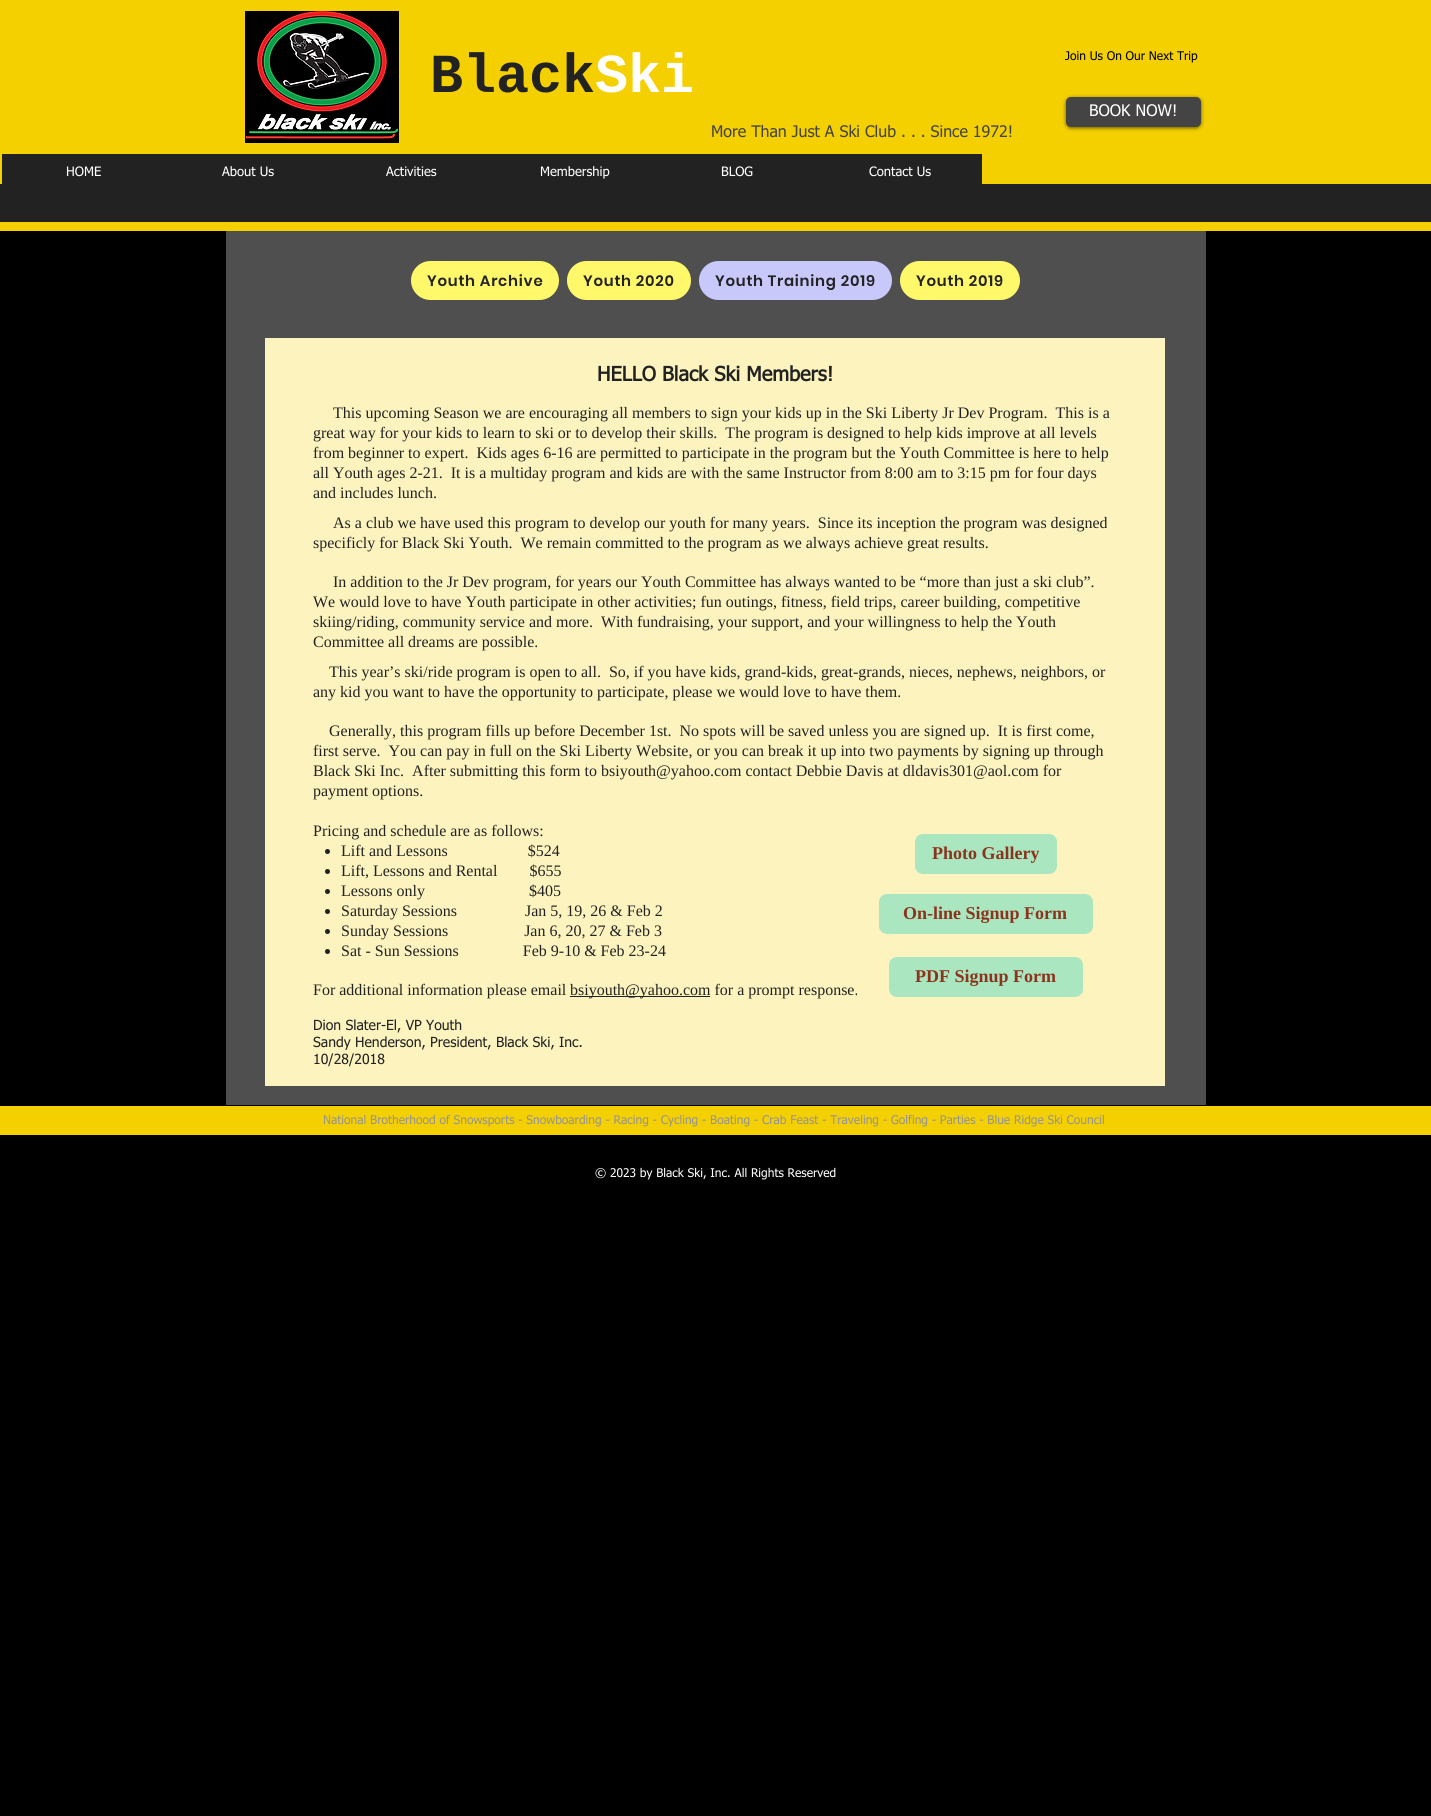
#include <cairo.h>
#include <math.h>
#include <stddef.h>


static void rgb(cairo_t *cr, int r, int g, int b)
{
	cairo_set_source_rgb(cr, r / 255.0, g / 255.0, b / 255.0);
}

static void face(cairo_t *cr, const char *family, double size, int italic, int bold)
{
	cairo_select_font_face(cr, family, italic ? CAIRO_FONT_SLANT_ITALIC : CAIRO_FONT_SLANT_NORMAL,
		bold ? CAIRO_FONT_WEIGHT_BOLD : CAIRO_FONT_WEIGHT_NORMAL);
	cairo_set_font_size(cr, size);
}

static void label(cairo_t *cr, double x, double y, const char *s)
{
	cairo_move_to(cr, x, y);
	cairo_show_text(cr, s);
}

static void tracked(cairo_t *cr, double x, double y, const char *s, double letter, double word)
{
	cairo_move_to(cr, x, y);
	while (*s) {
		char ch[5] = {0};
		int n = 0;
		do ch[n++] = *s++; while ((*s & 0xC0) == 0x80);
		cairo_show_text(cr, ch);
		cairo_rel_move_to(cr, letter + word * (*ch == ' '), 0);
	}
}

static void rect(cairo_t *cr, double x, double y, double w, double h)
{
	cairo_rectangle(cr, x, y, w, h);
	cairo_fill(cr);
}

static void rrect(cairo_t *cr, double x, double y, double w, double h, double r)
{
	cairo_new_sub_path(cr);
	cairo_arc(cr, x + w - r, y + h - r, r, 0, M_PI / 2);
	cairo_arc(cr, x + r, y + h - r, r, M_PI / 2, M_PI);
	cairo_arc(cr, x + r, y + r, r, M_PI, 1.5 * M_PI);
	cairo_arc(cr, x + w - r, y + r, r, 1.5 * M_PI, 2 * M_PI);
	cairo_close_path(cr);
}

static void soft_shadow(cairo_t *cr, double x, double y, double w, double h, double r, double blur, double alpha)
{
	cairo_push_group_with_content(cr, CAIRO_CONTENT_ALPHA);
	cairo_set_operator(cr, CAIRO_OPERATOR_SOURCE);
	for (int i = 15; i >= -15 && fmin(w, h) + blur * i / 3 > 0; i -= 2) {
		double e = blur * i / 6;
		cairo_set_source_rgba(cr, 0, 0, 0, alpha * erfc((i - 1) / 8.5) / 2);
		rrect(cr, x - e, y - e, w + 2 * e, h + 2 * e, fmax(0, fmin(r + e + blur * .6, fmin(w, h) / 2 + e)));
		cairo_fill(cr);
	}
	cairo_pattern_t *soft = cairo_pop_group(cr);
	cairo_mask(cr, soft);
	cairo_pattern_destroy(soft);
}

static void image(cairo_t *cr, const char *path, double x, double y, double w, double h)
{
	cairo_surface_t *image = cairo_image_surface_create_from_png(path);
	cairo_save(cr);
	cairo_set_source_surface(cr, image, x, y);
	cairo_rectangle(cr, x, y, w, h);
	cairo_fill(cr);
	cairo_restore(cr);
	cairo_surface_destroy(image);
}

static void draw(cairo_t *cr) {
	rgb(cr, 0, 0, 0);
	cairo_paint(cr);
	rgb(cr, 245, 208, 0);
	rect(cr, 0, 0, 1431, 231);
	image(cr, "image0.png", 245, 11, 154, 132);
	face(cr, "Liberation Mono", 55, 0, 1);
	rgb(cr, 34, 34, 34);
	label(cr, 430, 92, "Black");
	rgb(cr, 255, 255, 255);
	label(cr, 595, 92, "Ski");
	face(cr, "tahoma", 12, 0, 0);
	rgb(cr, 0, 0, 0);
	label(cr, 1065, 60, "Join Us On Our Next Trip");
	rgb(cr, 0, 0, 0);
	soft_shadow(cr, 1066, 98, 135, 30, 5, 2, 0.6);
	rgb(cr, 68, 68, 68);
	rrect(cr, 1066, 97, 135, 30, 5);
	cairo_fill(cr);
	face(cr, "tahoma", 16, 0, 0);
	rgb(cr, 255, 255, 255);
	label(cr, 1089, 116, "BOOK NOW!");
	rgb(cr, 68, 68, 68);
	label(cr, 711, 137, "More Than Just A Ski Club . . . Since 1972!");
	rgb(cr, 34, 34, 34);
	rect(cr, 2, 154, 980, 30);
	face(cr, "tahoma", 13, 0, 0);
	rgb(cr, 255, 255, 255);
	label(cr, 66, 176, "HOME");
	label(cr, 222, 176, "About Us");
	label(cr, 386, 176, "Activities");
	label(cr, 540, 176, "Membership");
	label(cr, 721, 176, "BLOG");
	label(cr, 869, 176, "Contact Us");
	rgb(cr, 34, 34, 34);
	rect(cr, 0, 184, 1431, 38);
	rgb(cr, 79, 79, 79);
	rect(cr, 226, 231, 980, 874);
	rgb(cr, 255, 248, 107);
	rrect(cr, 411, 261, 148, 39, 19.5);
	cairo_fill(cr);
	face(cr, "Poppins SemiBold", 15, 0, 0);
	rgb(cr, 34, 34, 34);
	tracked(cr, 427, 286, "Youth Archive", 0.75, 0);
	rgb(cr, 255, 248, 107);
	rrect(cr, 567, 261, 124, 39, 19.5);
	cairo_fill(cr);
	rgb(cr, 34, 34, 34);
	tracked(cr, 583, 286, "Youth 2020", 0.75, 0);
	rgb(cr, 201, 200, 251);
	rrect(cr, 699, 261, 193, 39, 19.5);
	cairo_fill(cr);
	rgb(cr, 34, 34, 34);
	tracked(cr, 715, 286, "Youth Training 2019", 0.75, 0);
	rgb(cr, 255, 248, 107);
	rrect(cr, 900, 261, 120, 39, 19.5);
	cairo_fill(cr);
	rgb(cr, 34, 34, 34);
	tracked(cr, 916, 286, "Youth 2019", 0.75, 0);
	rgb(cr, 252, 243, 190);
	rect(cr, 265, 338, 900, 748);
	face(cr, "tahoma", 20, 0, 1);
	rgb(cr, 34, 34, 34);
	label(cr, 597, 381, "HELLO Black Ski Members!");
	face(cr, "Liberation Serif", 16, 0, 0);
	label(cr, 333, 418, "This upcoming Season we are encouraging all members to sign your kids up in the Ski Liberty Jr Dev Program.  This is a");
	label(cr, 313, 438, "great way for your kids to learn to ski or to develop their skills.  The program is designed to help kids improve at all levels");
	label(cr, 313, 458, "from beginner to expert.  Kids ages 6-16 are permitted to participate in the program but the Youth Committee is here to help");
	label(cr, 313, 478, "all Youth ages 2-21.  It is a multiday program and kids are with the same Instructor from 8:00 am to 3:15 pm for four days");
	label(cr, 313, 498, "and includes lunch.");
	label(cr, 333, 528, "As a club we have used this program to develop our youth for many years.  Since its inception the program was designed");
	label(cr, 313, 548, "specificly for Black Ski Youth.  We remain committed to the program as we always achieve great results.");
	label(cr, 333, 587, "In addition to the Jr Dev program, for years our Youth Committee has always wanted to be “more than just a ski club”.");
	label(cr, 313, 607, "We would love to have Youth participate in other activities; fun outings, fitness, field trips, career building, competitive");
	label(cr, 313, 627, "skiing/riding, community service and more.  With fundraising, your support, and your willingness to help the Youth");
	label(cr, 313, 647, "Committee all dreams are possible.");
	label(cr, 329, 677, "This year’s ski/ride program is open to all.  So, if you have kids, grand-kids, great-grands, nieces, nephews, neighbors, or");
	label(cr, 313, 697, "any kid you want to have the opportunity to participate, please we would love to have them.");
	label(cr, 329, 736, "Generally, this program fills up before December 1st.  No spots will be saved unless you are signed up.  It is first come,");
	label(cr, 313, 756, "first serve.  You can pay in full on the Ski Liberty Website, or you can break it up into two payments by signing up through");
	label(cr, 313, 776, "Black Ski Inc.  After submitting this form to bsiyouth@yahoo.com contact Debbie Davis at dldavis301@aol.com for");
	label(cr, 313, 796, "payment options.");
	label(cr, 313, 836, "Pricing and schedule are as follows:");
	cairo_new_path(cr);
	cairo_arc(cr, 327.5, 851.5, 2.5, 0, 2 * M_PI);
	cairo_fill(cr);
	label(cr, 341, 856, "Lift and Lessons                    $524");
	cairo_new_path(cr);
	cairo_arc(cr, 327.5, 871.5, 2.5, 0, 2 * M_PI);
	cairo_fill(cr);
	label(cr, 341, 876, "Lift, Lessons and Rental        $655");
	cairo_new_path(cr);
	cairo_arc(cr, 327.5, 891.5, 2.5, 0, 2 * M_PI);
	cairo_fill(cr);
	label(cr, 341, 896, "Lessons only                          $405");
	cairo_new_path(cr);
	cairo_arc(cr, 327.5, 911.5, 2.5, 0, 2 * M_PI);
	cairo_fill(cr);
	label(cr, 341, 916, "Saturday Sessions                 Jan 5, 19, 26 & Feb 2");
	cairo_new_path(cr);
	cairo_arc(cr, 327.5, 931.5, 2.5, 0, 2 * M_PI);
	cairo_fill(cr);
	label(cr, 341, 936, "Sunday Sessions                   Jan 6, 20, 27 & Feb 3");
	cairo_new_path(cr);
	cairo_arc(cr, 327.5, 951.5, 2.5, 0, 2 * M_PI);
	cairo_fill(cr);
	label(cr, 341, 956, "Sat - Sun Sessions                Feb 9-10 & Feb 23-24");
	label(cr, 313, 995, "For additional information please email");
	rect(cr, 570, 996, 140, 1);
	label(cr, 570, 995, "bsiyouth@yahoo.com for a prompt response.");
	face(cr, "tahoma", 14, 0, 0);
	label(cr, 313, 1030, "Dion Slater-El, VP Youth");
	label(cr, 313, 1047, "Sandy Henderson, President, Black Ski, Inc.");
	label(cr, 313, 1064, "10/28/2018");
	rgb(cr, 170, 231, 192);
	rrect(cr, 915, 834, 142, 40, 8);
	cairo_fill(cr);
	face(cr, "Liberation Serif", 18, 0, 1);
	rgb(cr, 139, 51, 29);
	label(cr, 932, 859, "Photo Gallery");
	rgb(cr, 170, 231, 192);
	rrect(cr, 879, 894, 214, 40, 8);
	cairo_fill(cr);
	rgb(cr, 139, 51, 29);
	label(cr, 903, 919, "On-line Signup Form");
	rgb(cr, 170, 231, 192);
	rrect(cr, 889, 957, 194, 40, 8);
	cairo_fill(cr);
	rgb(cr, 139, 51, 29);
	label(cr, 915, 982, "PDF Signup Form");
	rgb(cr, 245, 208, 0);
	rect(cr, 0, 1106, 1431, 29);
	face(cr, "tahoma", 12, 0, 0);
	rgb(cr, 148, 148, 148);
	label(cr, 323, 1124, "National Brotherhood of Snowsports - Snowboarding - Racing - Cycling - Boating - Crab Feast - Traveling - Golfing - Parties - Blue Ridge Ski Council");
	rgb(cr, 255, 255, 255);
	label(cr, 595, 1177, "© 2023 by Black Ski, Inc. All Rights Reserved");
}

int main(void) {
	cairo_surface_t *surface = cairo_image_surface_create(CAIRO_FORMAT_RGB24, 1431, 1816);
	cairo_t *cr = cairo_create(surface);
	cairo_font_options_t *options = cairo_font_options_create();
	cairo_font_options_set_hint_metrics(options, CAIRO_HINT_METRICS_OFF);
	cairo_font_options_set_hint_style(options, CAIRO_HINT_STYLE_NONE);
	cairo_set_font_options(cr, options);
	cairo_set_miter_limit(cr, 4);
	draw(cr);
	cairo_surface_write_to_png(surface, "render.png");
	cairo_font_options_destroy(options);
	cairo_destroy(cr);
	cairo_surface_destroy(surface);
	return 0;
}
